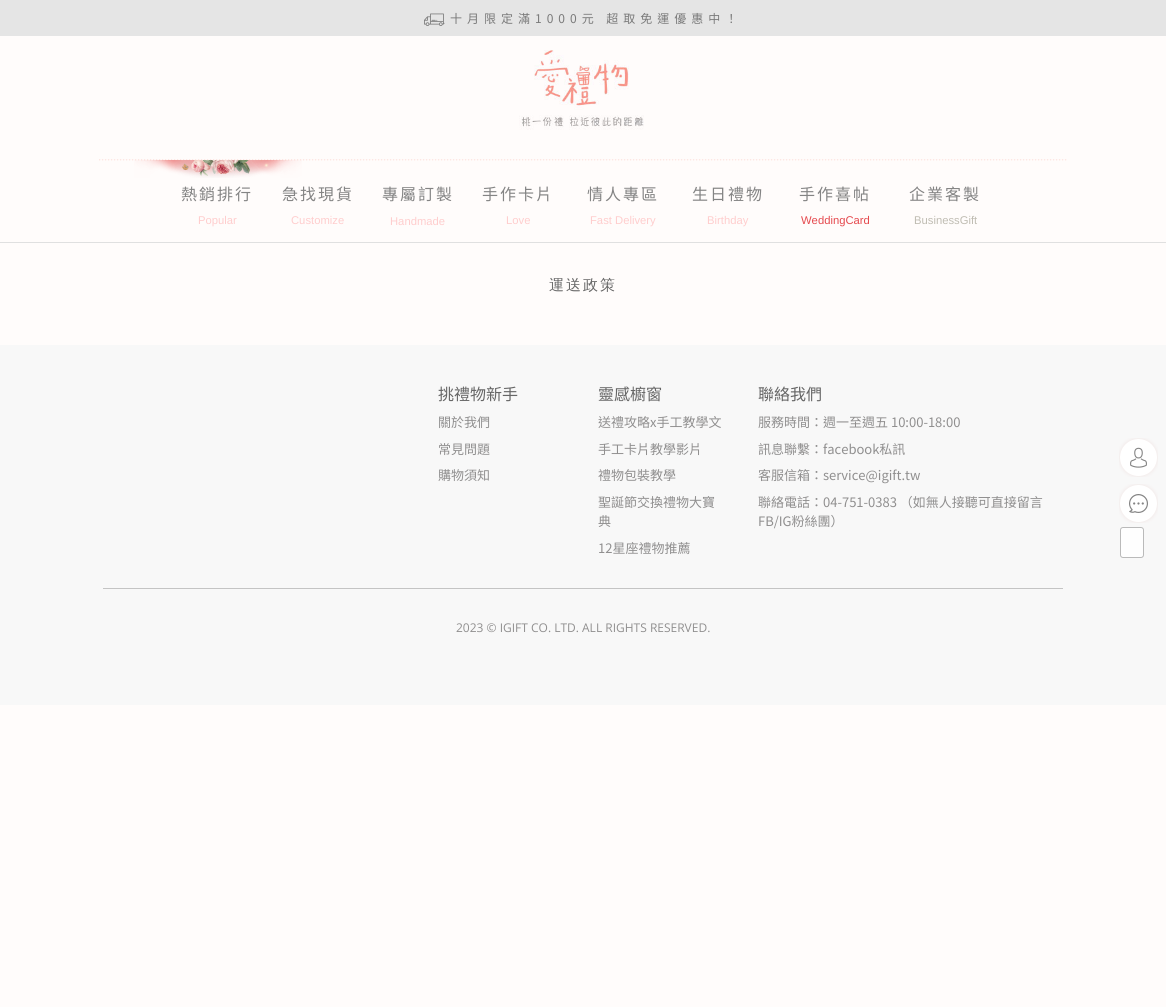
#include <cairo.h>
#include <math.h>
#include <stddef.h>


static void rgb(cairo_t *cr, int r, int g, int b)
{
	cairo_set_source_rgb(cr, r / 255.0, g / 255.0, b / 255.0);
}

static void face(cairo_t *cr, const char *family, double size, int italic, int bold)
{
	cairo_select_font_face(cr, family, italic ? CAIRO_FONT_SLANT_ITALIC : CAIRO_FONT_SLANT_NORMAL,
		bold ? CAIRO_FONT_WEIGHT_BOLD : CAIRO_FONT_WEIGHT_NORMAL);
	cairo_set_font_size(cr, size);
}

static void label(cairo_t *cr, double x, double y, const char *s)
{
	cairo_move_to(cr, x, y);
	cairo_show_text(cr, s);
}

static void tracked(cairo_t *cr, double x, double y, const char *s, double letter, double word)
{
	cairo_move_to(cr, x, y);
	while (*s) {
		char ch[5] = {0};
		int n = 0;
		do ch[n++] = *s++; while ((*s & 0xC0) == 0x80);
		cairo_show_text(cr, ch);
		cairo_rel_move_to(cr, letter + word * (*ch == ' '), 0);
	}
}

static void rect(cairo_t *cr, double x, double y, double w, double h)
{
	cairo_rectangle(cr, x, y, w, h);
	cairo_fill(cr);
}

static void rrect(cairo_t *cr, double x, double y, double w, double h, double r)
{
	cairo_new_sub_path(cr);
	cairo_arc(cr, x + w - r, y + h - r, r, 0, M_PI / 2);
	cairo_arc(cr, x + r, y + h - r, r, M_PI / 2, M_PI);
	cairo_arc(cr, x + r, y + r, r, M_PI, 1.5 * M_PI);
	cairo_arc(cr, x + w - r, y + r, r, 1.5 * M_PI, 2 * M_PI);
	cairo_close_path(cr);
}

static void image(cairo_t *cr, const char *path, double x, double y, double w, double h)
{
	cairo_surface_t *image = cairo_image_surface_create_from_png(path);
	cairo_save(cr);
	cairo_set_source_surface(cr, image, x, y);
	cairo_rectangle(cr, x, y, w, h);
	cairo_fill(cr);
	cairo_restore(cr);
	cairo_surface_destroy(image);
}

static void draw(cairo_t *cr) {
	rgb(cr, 255, 252, 251);
	cairo_paint(cr);
	rgb(cr, 229, 229, 229);
	rect(cr, 0, 0, 1166, 36);
	image(cr, "image0.png", 424, 13, 21, 13);
	face(cr, "Noto Sans TC", 12, 0, 0);
	rgb(cr, 122, 122, 122);
	tracked(cr, 450, 23, "十月限定滿1000元 超取免運優惠中！", 5, 0);
	image(cr, "image1.png", 519, 50, 125, 80);
	rgb(cr, 224, 224, 224);
	rect(cr, 0, 242, 1166, 1);
	image(cr, "image2.png", 99, 159, 968, 2);
	image(cr, "image3.png", 134, 160, 168, 18);
	face(cr, "Noto Sans TC", 16, 0, 0);
	rgb(cr, 132, 132, 132);
	tracked(cr, 181, 200, "熱銷排行", 2, 0);
	face(cr, "Liberation Sans", 11.25, 0, 0);
	rgb(cr, 255, 205, 205);
	label(cr, 198, 224, "Popular");
	face(cr, "Noto Sans TC", 16, 0, 0);
	rgb(cr, 132, 132, 132);
	tracked(cr, 282, 200, "急找現貨", 2, 0);
	face(cr, "Liberation Sans", 11.25, 0, 0);
	rgb(cr, 255, 205, 205);
	label(cr, 291, 224, "Customize");
	face(cr, "Noto Sans TC", 16, 0, 0);
	rgb(cr, 132, 132, 132);
	tracked(cr, 382, 200, "專屬訂製", 2, 0);
	face(cr, "Liberation Sans", 11.25, 0, 0);
	rgb(cr, 255, 205, 205);
	label(cr, 390, 225, "Handmade");
	face(cr, "Noto Sans TC", 16, 0, 0);
	rgb(cr, 132, 132, 132);
	tracked(cr, 482, 200, "手作卡片", 2, 0);
	face(cr, "Liberation Sans", 11.25, 0, 0);
	rgb(cr, 255, 205, 205);
	label(cr, 506, 224, "Love");
	face(cr, "Noto Sans TC", 16, 0, 0);
	rgb(cr, 132, 132, 132);
	tracked(cr, 587, 200, "情人專區", 2, 0);
	face(cr, "Liberation Sans", 11.25, 0, 0);
	rgb(cr, 255, 205, 205);
	label(cr, 590, 224, "Fast Delivery");
	face(cr, "Noto Sans TC", 16, 0, 0);
	rgb(cr, 132, 132, 132);
	tracked(cr, 692, 200, "生日禮物", 2, 0);
	face(cr, "Liberation Sans", 11.25, 0, 0);
	rgb(cr, 255, 205, 205);
	label(cr, 707, 224, "Birthday");
	face(cr, "Noto Sans TC", 16, 0, 0);
	rgb(cr, 132, 132, 132);
	tracked(cr, 799, 200, "手作喜帖", 2, 0);
	face(cr, "Liberation Sans", 11.25, 0, 0);
	rgb(cr, 229, 73, 78);
	label(cr, 801, 224, "WeddingCard");
	face(cr, "Noto Sans TC", 16, 0, 0);
	rgb(cr, 132, 132, 132);
	tracked(cr, 909, 200, "企業客製", 2, 0);
	face(cr, "Liberation Sans", 11.25, 0, 0);
	rgb(cr, 191, 188, 178);
	label(cr, 914, 224, "BusinessGift");
	face(cr, "WenQuanYi Zen Hei Medium", 15, 0, 0);
	rgb(cr, 102, 102, 102);
	tracked(cr, 549, 290, "運送政策", 2, 0);
	rgb(cr, 248, 248, 248);
	rect(cr, 0, 345, 1166, 360);
	face(cr, "Noto Sans TC", 16, 0, 0);
	rgb(cr, 102, 102, 102);
	label(cr, 438, 400, "挑禮物新手");
	face(cr, "Noto Sans TC", 13, 0, 0);
	rgb(cr, 144, 143, 143);
	label(cr, 438, 427, "關於我們");
	label(cr, 438, 454, "常見問題");
	label(cr, 438, 480, "購物須知");
	face(cr, "Noto Sans TC", 16, 0, 0);
	rgb(cr, 102, 102, 102);
	label(cr, 598, 400, "靈感櫥窗");
	face(cr, "Noto Sans TC", 13, 0, 0);
	rgb(cr, 144, 143, 143);
	label(cr, 598, 427, "送禮攻略x手工教學文");
	label(cr, 598, 454, "手工卡片教學影片");
	label(cr, 598, 480, "禮物包裝教學");
	label(cr, 598, 507, "聖誕節交換禮物大寶");
	label(cr, 598, 526, "典");
	label(cr, 598, 553, "12星座禮物推薦");
	face(cr, "Noto Sans TC", 16, 0, 0);
	rgb(cr, 102, 102, 102);
	label(cr, 758, 400, "聯絡我們");
	face(cr, "Noto Sans TC", 13, 0, 0);
	rgb(cr, 144, 143, 143);
	label(cr, 758, 427, "服務時間：週一至週五 10:00-18:00");
	label(cr, 758, 454, "訊息聯繫：facebook私訊");
	label(cr, 758, 480, "客服信箱：service@igift.tw");
	label(cr, 758, 507, "聯絡電話：04-751-0383 （如無人接聽可直接留言");
	label(cr, 758, 526, "FB/IG粉絲團）");
	rgb(cr, 196, 196, 196);
	rect(cr, 103, 588, 960, 1);
	face(cr, "Open Sans", 12, 0, 0);
	rgb(cr, 144, 143, 143);
	label(cr, 456, 632, "2023 © IGIFT CO. LTD. ALL RIGHTS RESERVED.");
	image(cr, "image4.png", 1119, 438, 39, 39);
	image(cr, "image5.png", 1119, 484, 39, 39);
	rgb(cr, 254, 254, 254);
	rrect(cr, 1120.5, 527.5, 23, 30, 2.5);
	cairo_fill_preserve(cr);
	rgb(cr, 186, 186, 186);
	cairo_set_line_width(cr, 1);
	cairo_stroke(cr);
}

int main(void) {
	cairo_surface_t *surface = cairo_image_surface_create(CAIRO_FORMAT_RGB24, 1166, 1007);
	cairo_t *cr = cairo_create(surface);
	cairo_font_options_t *options = cairo_font_options_create();
	cairo_font_options_set_hint_metrics(options, CAIRO_HINT_METRICS_OFF);
	cairo_font_options_set_hint_style(options, CAIRO_HINT_STYLE_NONE);
	cairo_set_font_options(cr, options);
	cairo_set_miter_limit(cr, 4);
	draw(cr);
	cairo_surface_write_to_png(surface, "render.png");
	cairo_font_options_destroy(options);
	cairo_destroy(cr);
	cairo_surface_destroy(surface);
	return 0;
}
